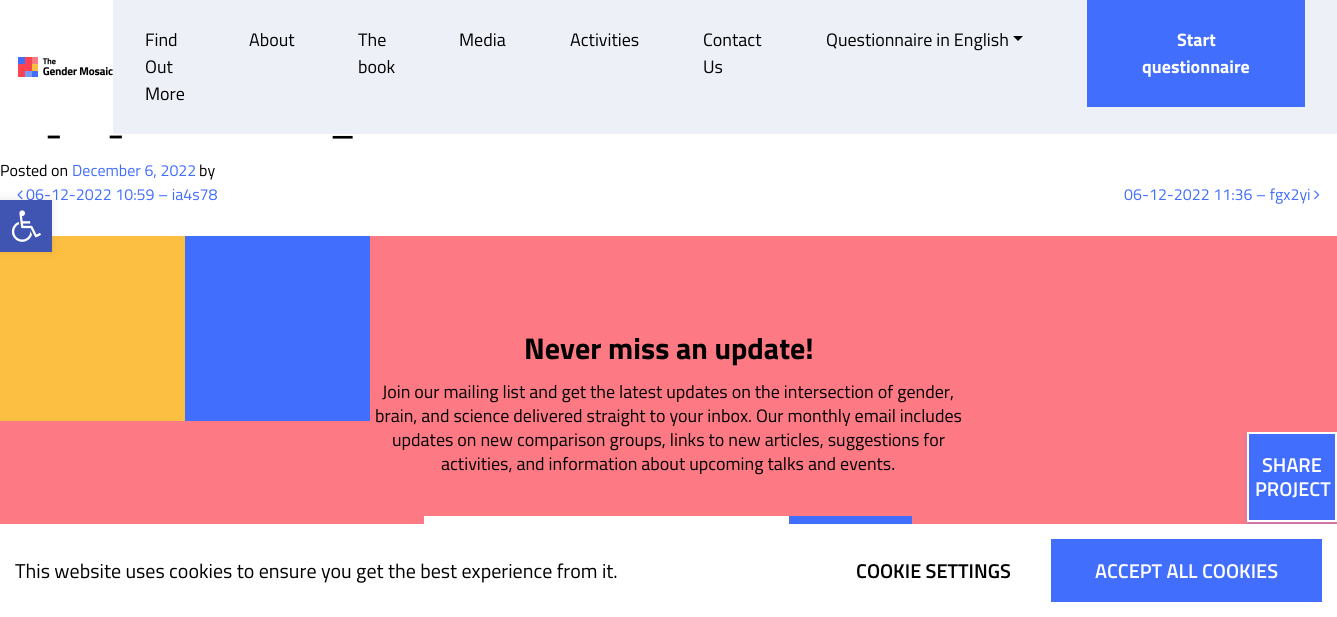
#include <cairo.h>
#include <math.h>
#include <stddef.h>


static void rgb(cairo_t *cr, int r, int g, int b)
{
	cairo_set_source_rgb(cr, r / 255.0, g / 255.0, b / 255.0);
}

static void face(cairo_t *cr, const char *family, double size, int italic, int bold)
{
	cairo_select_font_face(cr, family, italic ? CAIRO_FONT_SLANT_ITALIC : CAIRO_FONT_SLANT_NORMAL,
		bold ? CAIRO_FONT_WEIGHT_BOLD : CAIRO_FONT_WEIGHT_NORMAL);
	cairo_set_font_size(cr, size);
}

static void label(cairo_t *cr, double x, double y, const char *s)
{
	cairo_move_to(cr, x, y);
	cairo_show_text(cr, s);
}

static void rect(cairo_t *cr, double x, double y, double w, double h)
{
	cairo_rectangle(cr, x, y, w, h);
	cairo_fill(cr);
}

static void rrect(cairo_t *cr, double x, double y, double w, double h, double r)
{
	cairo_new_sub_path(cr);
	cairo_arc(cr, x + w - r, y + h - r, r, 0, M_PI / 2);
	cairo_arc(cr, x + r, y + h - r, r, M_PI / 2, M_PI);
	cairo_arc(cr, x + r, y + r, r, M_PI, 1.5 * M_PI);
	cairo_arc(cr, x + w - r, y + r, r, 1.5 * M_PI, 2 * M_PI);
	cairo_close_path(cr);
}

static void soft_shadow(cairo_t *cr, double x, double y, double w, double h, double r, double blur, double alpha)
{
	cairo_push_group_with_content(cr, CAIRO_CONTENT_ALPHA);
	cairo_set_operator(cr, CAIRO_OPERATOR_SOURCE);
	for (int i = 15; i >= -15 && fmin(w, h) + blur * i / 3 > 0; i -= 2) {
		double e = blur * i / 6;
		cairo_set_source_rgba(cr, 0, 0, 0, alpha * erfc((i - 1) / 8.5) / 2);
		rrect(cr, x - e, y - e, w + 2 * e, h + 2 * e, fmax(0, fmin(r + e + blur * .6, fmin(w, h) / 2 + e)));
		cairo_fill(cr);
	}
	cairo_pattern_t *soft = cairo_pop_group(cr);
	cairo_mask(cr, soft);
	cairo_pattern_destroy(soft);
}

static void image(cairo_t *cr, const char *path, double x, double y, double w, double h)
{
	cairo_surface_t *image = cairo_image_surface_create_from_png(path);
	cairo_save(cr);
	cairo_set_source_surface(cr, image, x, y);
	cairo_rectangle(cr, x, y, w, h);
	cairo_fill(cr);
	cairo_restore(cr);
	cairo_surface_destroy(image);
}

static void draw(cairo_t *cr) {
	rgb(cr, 255, 255, 255);
	cairo_paint(cr);
	image(cr, "image0.png", 18, 57, 95, 20);
	rgb(cr, 238, 240, 248);
	rect(cr, 113, 0, 1224, 134);
	face(cr, "Titillium Web", 18, 0, 0);
	rgb(cr, 0, 0, 0);
	label(cr, 145, 46, "Find");
	label(cr, 145, 73, "Out");
	label(cr, 145, 100, "More");
	label(cr, 249, 46, "About");
	label(cr, 358, 46, "The");
	label(cr, 358, 73, "book");
	label(cr, 459, 46, "Media");
	label(cr, 570, 46, "Activities");
	label(cr, 703, 46, "Contact");
	label(cr, 703, 73, "Us");
	label(cr, 826, 46, "Questionnaire in English");
	cairo_new_path(cr);
	cairo_move_to(cr, 1013, 36);
	cairo_line_to(cr, 1023, 36);
	cairo_line_to(cr, 1018, 41);
	cairo_close_path(cr);
	cairo_fill(cr);
	rgb(cr, 66, 110, 253);
	rect(cr, 1087, 0, 218, 107);
	face(cr, "Titillium Web", 18, 0, 1);
	rgb(cr, 255, 255, 255);
	label(cr, 1177, 46, "Start");
	label(cr, 1142, 73, "questionnaire");
	face(cr, "Titillium Web", 40, 0, 0);
	rgb(cr, 0, 0, 0);
	label(cr, 45, 148, "-");
	label(cr, 107, 148, "-");
	label(cr, 330, 148, "–");
	face(cr, "Titillium Web", 16, 0, 0);
	label(cr, 0, 176, "Posted on");
	rgb(cr, 66, 110, 253);
	label(cr, 72, 176, "December 6, 2022");
	rgb(cr, 0, 0, 0);
	label(cr, 199, 176, "by");
	image(cr, "image1.png", 17, 190, 6, 10);
	rgb(cr, 66, 110, 253);
	label(cr, 26, 200, "06-12-2022 10:59 – ia4s78");
	label(cr, 1124, 200, "06-12-2022 11:36 – fgx2yi");
	image(cr, "image2.png", 1314, 190, 6, 10);
	rgb(cr, 253, 122, 132);
	rect(cr, 0, 236, 1337, 288);
	rgb(cr, 253, 191, 66);
	rect(cr, 0, 236, 185, 185);
	rgb(cr, 66, 110, 253);
	rect(cr, 185, 236, 185, 185);
	face(cr, "Titillium Web", 30, 0, 1);
	rgb(cr, 0, 0, 0);
	label(cr, 524, 359, "Never miss an update!");
	face(cr, "Titillium Web", 18, 0, 0);
	label(cr, 382, 398, "Join our mailing list and get the latest updates on the intersection of gender,");
	label(cr, 375, 422, "brain, and science delivered straight to your inbox. Our monthly email includes");
	label(cr, 392, 446, "updates on new comparison groups, links to new articles, suggestions for");
	label(cr, 441, 470, "activities, and information about upcoming talks and events.");
	rgb(cr, 255, 255, 255);
	rect(cr, 424, 516, 365, 8);
	rgb(cr, 66, 110, 253);
	rect(cr, 789, 516, 123, 8);
	rgb(cr, 66, 110, 253);
	soft_shadow(cr, 1247, 436, 90, 90, 0, 3, 0.3);
	rgb(cr, 66, 110, 253);
	cairo_rectangle(cr, 1248, 433, 88, 88);
	cairo_fill_preserve(cr);
	rgb(cr, 255, 255, 255);
	cairo_stroke(cr);
	face(cr, "Titillium Web SemiBold", 20, 0, 0);
	label(cr, 1262, 472, "SHARE");
	label(cr, 1255, 496, "PROJECT");
	rgb(cr, 0, 0, 0);
	soft_shadow(cr, 0, 200, 52, 52, 0, 5, 0.1);
	rgb(cr, 64, 84, 178);
	rect(cr, 0, 200, 52, 52);
	image(cr, "image3.png", 11, 210, 30, 32);
	rgb(cr, 255, 255, 255);
	rect(cr, 1243, 524, 94, 7);
	face(cr, "Titillium Web", 20, 0, 0);
	rgb(cr, 0, 0, 0);
	label(cr, 15, 578, "This website uses cookies to ensure you get the best experience from it.");
	face(cr, "Titillium Web SemiBold", 20, 0, 0);
	label(cr, 856, 578, "COOKIE SETTINGS");
	rgb(cr, 66, 110, 253);
	rect(cr, 1051, 539, 271, 63);
	rgb(cr, 255, 255, 255);
	label(cr, 1095, 578, "ACCEPT ALL COOKIES");
}

int main(void) {
	cairo_surface_t *surface = cairo_image_surface_create(CAIRO_FORMAT_RGB24, 1337, 617);
	cairo_t *cr = cairo_create(surface);
	cairo_font_options_t *options = cairo_font_options_create();
	cairo_font_options_set_hint_metrics(options, CAIRO_HINT_METRICS_OFF);
	cairo_font_options_set_hint_style(options, CAIRO_HINT_STYLE_NONE);
	cairo_set_font_options(cr, options);
	cairo_set_miter_limit(cr, 4);
	draw(cr);
	cairo_surface_write_to_png(surface, "render.png");
	cairo_font_options_destroy(options);
	cairo_destroy(cr);
	cairo_surface_destroy(surface);
	return 0;
}
